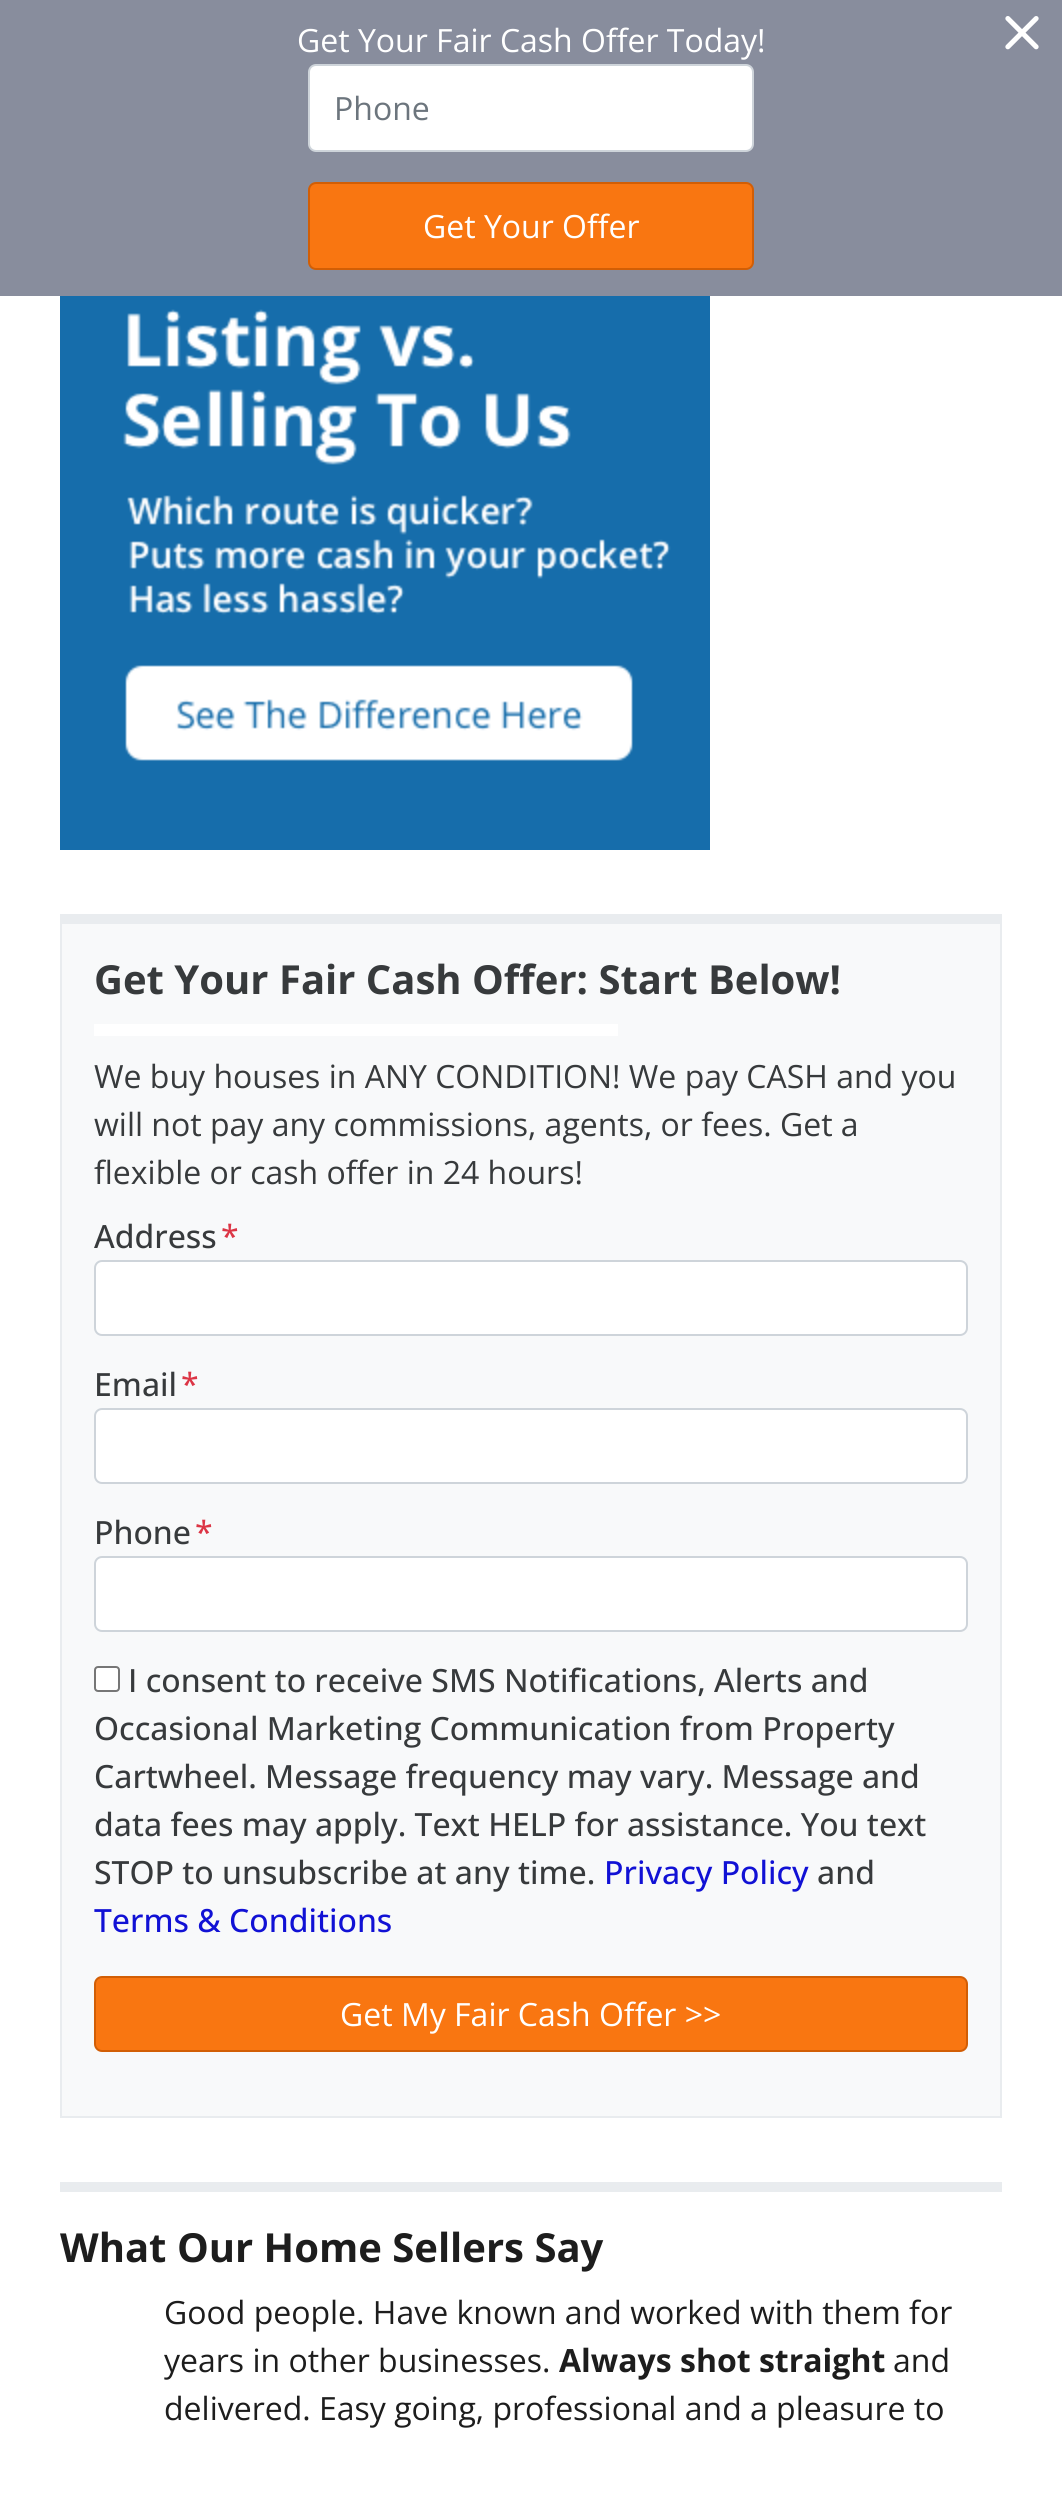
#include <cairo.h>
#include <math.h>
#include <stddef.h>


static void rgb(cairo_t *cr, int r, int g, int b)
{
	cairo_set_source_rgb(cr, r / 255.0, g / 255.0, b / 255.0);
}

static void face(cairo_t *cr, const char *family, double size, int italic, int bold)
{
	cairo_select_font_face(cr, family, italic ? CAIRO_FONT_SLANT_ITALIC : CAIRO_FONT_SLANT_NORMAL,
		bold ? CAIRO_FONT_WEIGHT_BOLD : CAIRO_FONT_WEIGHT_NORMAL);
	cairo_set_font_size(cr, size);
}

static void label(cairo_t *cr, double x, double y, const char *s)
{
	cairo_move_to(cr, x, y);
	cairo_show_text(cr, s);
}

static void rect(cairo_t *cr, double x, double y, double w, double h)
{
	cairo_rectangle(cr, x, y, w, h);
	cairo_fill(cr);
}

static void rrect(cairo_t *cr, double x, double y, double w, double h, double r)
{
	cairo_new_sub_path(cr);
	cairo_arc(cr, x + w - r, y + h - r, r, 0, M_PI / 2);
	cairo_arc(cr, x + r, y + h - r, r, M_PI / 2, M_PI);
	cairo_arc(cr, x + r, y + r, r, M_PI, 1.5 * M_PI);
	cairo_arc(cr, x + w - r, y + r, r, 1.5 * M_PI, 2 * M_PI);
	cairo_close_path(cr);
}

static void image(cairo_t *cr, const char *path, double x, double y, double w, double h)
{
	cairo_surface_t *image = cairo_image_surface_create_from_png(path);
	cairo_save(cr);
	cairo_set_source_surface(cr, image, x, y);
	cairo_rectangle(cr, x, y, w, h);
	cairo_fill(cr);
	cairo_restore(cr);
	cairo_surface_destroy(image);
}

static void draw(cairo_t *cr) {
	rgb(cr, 255, 255, 255);
	cairo_paint(cr);
	rgb(cr, 136, 141, 157);
	rect(cr, 0, 0, 1062, 296);
	face(cr, "Open Sans", 32, 0, 0);
	rgb(cr, 255, 255, 255);
	label(cr, 297, 52, "Get Your Fair Cash Offer Today!");
	rrect(cr, 309, 65, 444, 86, 7);
	cairo_fill_preserve(cr);
	rgb(cr, 206, 212, 218);
	cairo_stroke(cr);
	rgb(cr, 108, 117, 125);
	label(cr, 334, 120, "Phone");
	rgb(cr, 249, 118, 17);
	rrect(cr, 309, 183, 444, 86, 7);
	cairo_fill_preserve(cr);
	rgb(cr, 210, 94, 5);
	cairo_stroke(cr);
	rgb(cr, 255, 255, 255);
	label(cr, 423, 238, "Get Your Offer");
	image(cr, "image0.png", 1005, 16, 34, 34);
	image(cr, "image1.png", 60, 296, 650, 554);
	rgb(cr, 248, 249, 250);
	rect(cr, 62, 924, 938, 1192);
	rgb(cr, 233, 236, 239);
	rect(cr, 62, 914, 938, 10);
	rect(cr, 1000, 914, 2, 1204);
	rect(cr, 60, 2116, 942, 2);
	rect(cr, 60, 914, 2, 1204);
	face(cr, "Open Sans", 40, 0, 1);
	rgb(cr, 55, 58, 60);
	label(cr, 94, 994, "Get Your Fair Cash Offer: Start Below!");
	rgb(cr, 255, 255, 255);
	rect(cr, 94, 1024, 524, 12);
	face(cr, "Open Sans", 32, 0, 0);
	rgb(cr, 55, 58, 60);
	label(cr, 94, 1088, "We buy houses in ANY CONDITION! We pay CASH and you");
	label(cr, 94, 1136, "will not pay any commissions, agents, or fees. Get a");
	label(cr, 94, 1184, "flexible or cash offer in 24 hours!");
	face(cr, "Open Sans Medium", 32, 0, 0);
	label(cr, 94, 1248, "Address");
	rgb(cr, 220, 53, 69);
	label(cr, 221, 1248, "*");
	rgb(cr, 255, 255, 255);
	rrect(cr, 95, 1261, 872, 74, 7);
	cairo_fill_preserve(cr);
	rgb(cr, 206, 212, 218);
	cairo_stroke(cr);
	rgb(cr, 55, 58, 60);
	label(cr, 94, 1396, "Email");
	rgb(cr, 220, 53, 69);
	label(cr, 181, 1396, "*");
	rgb(cr, 255, 255, 255);
	rrect(cr, 95, 1409, 872, 74, 7);
	cairo_fill_preserve(cr);
	rgb(cr, 206, 212, 218);
	cairo_stroke(cr);
	rgb(cr, 55, 58, 60);
	label(cr, 94, 1544, "Phone");
	rgb(cr, 220, 53, 69);
	label(cr, 195, 1544, "*");
	rgb(cr, 255, 255, 255);
	rrect(cr, 95, 1557, 872, 74, 7);
	cairo_fill_preserve(cr);
	rgb(cr, 206, 212, 218);
	cairo_stroke(cr);
	rgb(cr, 255, 255, 255);
	rrect(cr, 95, 1667, 24, 24, 3);
	cairo_fill_preserve(cr);
	rgb(cr, 118, 118, 118);
	cairo_stroke(cr);
	rgb(cr, 55, 58, 60);
	label(cr, 128, 1692, "I consent to receive SMS Notifications, Alerts and");
	label(cr, 94, 1740, "Occasional Marketing Communication from Property");
	label(cr, 94, 1788, "Cartwheel. Message frequency may vary. Message and");
	label(cr, 94, 1836, "data fees may apply. Text HELP for assistance. You text");
	label(cr, 94, 1884, "STOP to unsubscribe at any time.");
	rgb(cr, 17, 17, 213);
	label(cr, 604, 1884, "Privacy Policy");
	rgb(cr, 55, 58, 60);
	label(cr, 817, 1884, "and");
	rgb(cr, 17, 17, 213);
	label(cr, 94, 1932, "Terms & Conditions");
	rgb(cr, 249, 118, 17);
	rrect(cr, 95, 1977, 872, 74, 7);
	cairo_fill_preserve(cr);
	rgb(cr, 210, 94, 5);
	cairo_stroke(cr);
	face(cr, "Open Sans", 32, 0, 0);
	rgb(cr, 255, 255, 255);
	label(cr, 340, 2026, "Get My Fair Cash Offer >>");
	rgb(cr, 233, 236, 239);
	rect(cr, 60, 2182, 942, 10);
	face(cr, "Open Sans", 40, 0, 1);
	rgb(cr, 29, 29, 29);
	label(cr, 60, 2262, "What Our Home Sellers Say");
	face(cr, "Open Sans", 32, 0, 0);
	label(cr, 164, 2324, "Good people. Have known and worked with them for");
	label(cr, 164, 2372, "years in other businesses.");
	face(cr, "Open Sans", 32, 0, 1);
	label(cr, 559, 2372, "Always shot straight");
	face(cr, "Open Sans", 32, 0, 0);
	label(cr, 893, 2372, "and");
	label(cr, 164, 2420, "delivered. Easy going, professional and a pleasure to");
}

int main(void) {
	cairo_surface_t *surface = cairo_image_surface_create(CAIRO_FORMAT_RGB24, 1062, 2506);
	cairo_t *cr = cairo_create(surface);
	cairo_font_options_t *options = cairo_font_options_create();
	cairo_font_options_set_hint_metrics(options, CAIRO_HINT_METRICS_OFF);
	cairo_font_options_set_hint_style(options, CAIRO_HINT_STYLE_NONE);
	cairo_set_font_options(cr, options);
	cairo_set_miter_limit(cr, 4);
	draw(cr);
	cairo_surface_write_to_png(surface, "render.png");
	cairo_font_options_destroy(options);
	cairo_destroy(cr);
	cairo_surface_destroy(surface);
	return 0;
}
